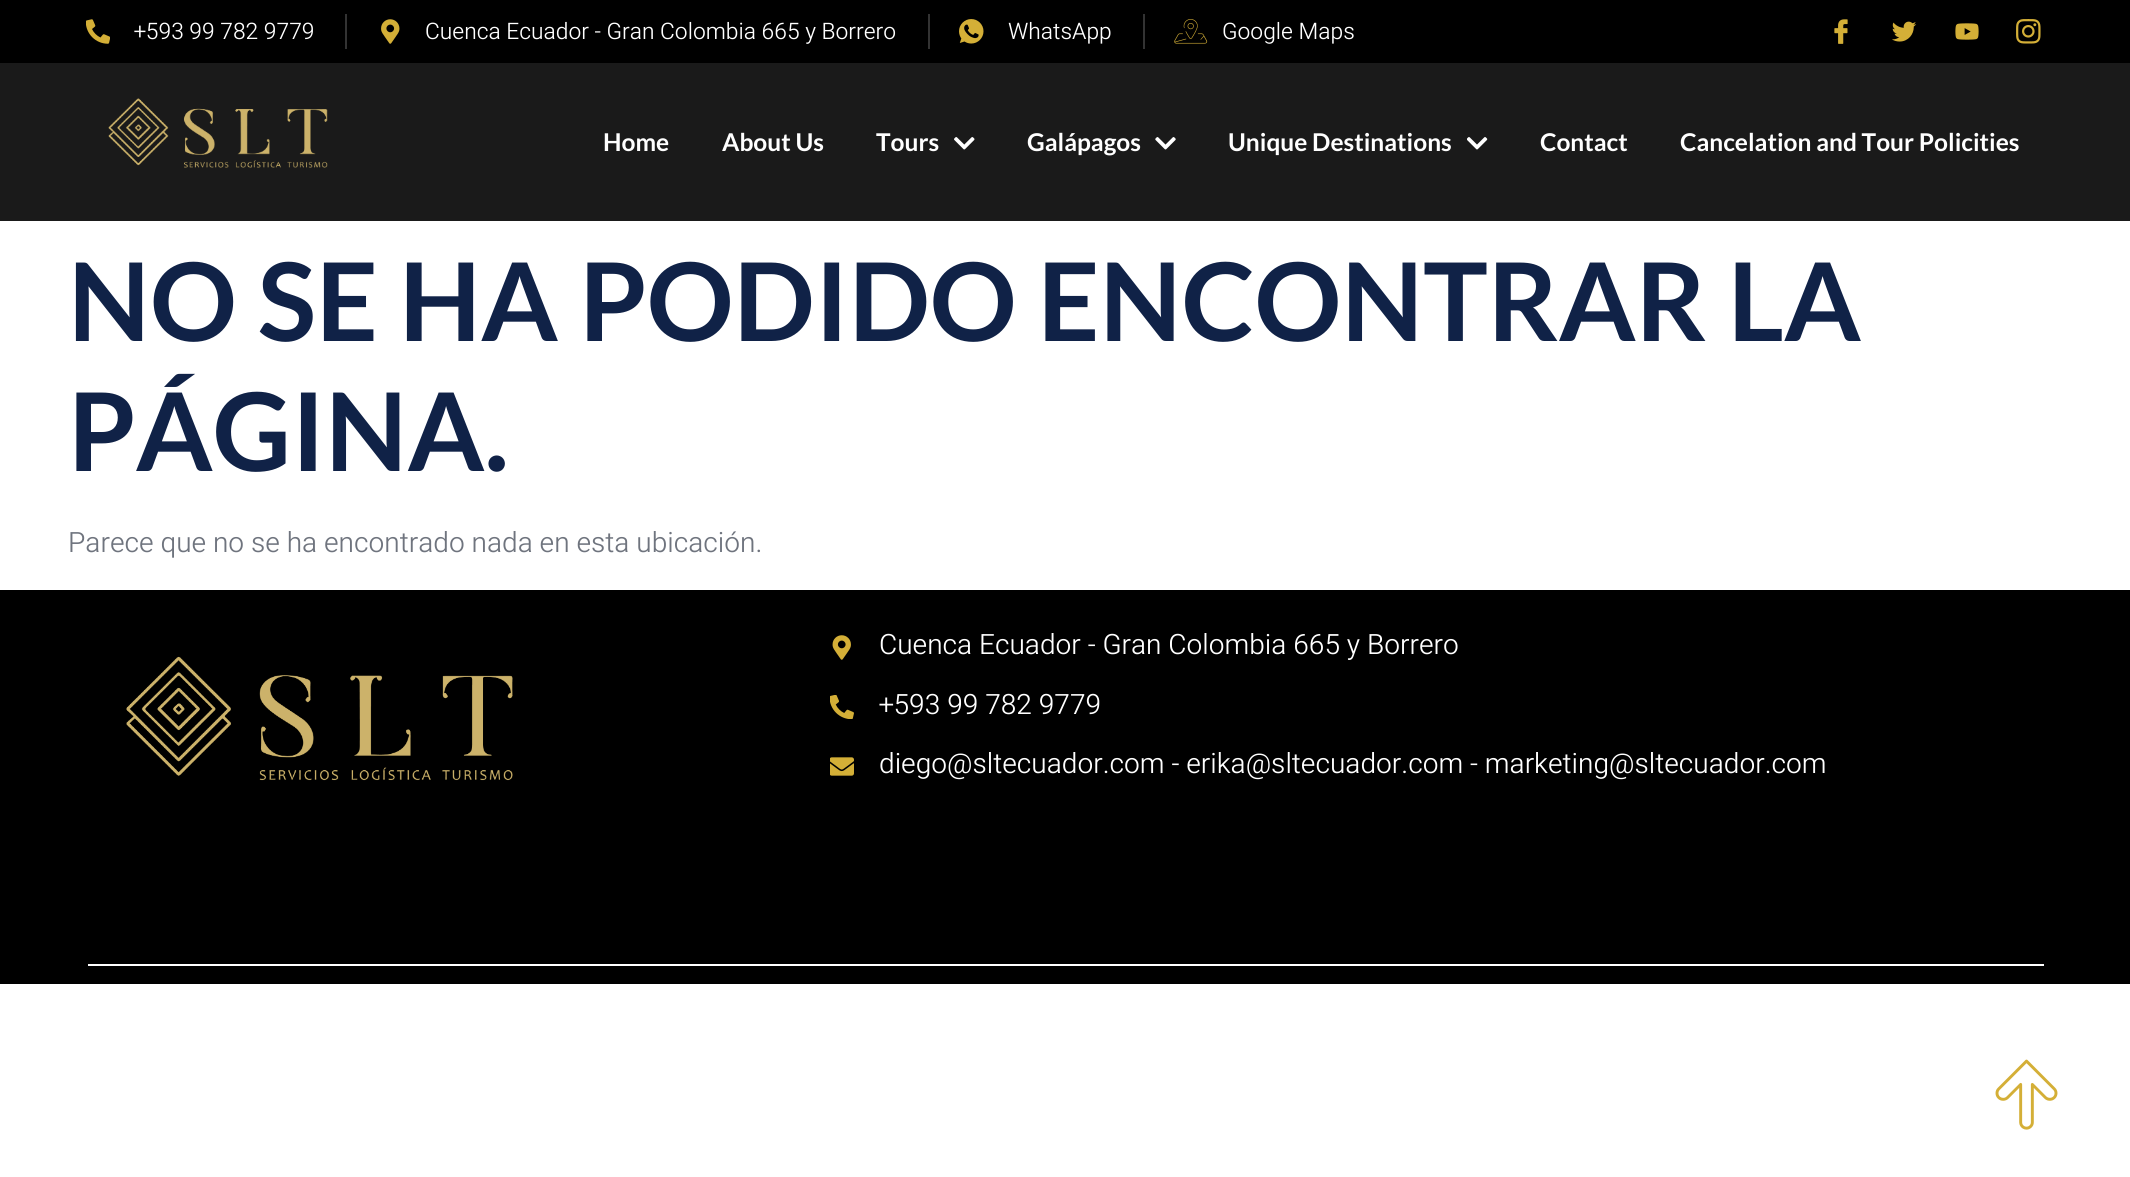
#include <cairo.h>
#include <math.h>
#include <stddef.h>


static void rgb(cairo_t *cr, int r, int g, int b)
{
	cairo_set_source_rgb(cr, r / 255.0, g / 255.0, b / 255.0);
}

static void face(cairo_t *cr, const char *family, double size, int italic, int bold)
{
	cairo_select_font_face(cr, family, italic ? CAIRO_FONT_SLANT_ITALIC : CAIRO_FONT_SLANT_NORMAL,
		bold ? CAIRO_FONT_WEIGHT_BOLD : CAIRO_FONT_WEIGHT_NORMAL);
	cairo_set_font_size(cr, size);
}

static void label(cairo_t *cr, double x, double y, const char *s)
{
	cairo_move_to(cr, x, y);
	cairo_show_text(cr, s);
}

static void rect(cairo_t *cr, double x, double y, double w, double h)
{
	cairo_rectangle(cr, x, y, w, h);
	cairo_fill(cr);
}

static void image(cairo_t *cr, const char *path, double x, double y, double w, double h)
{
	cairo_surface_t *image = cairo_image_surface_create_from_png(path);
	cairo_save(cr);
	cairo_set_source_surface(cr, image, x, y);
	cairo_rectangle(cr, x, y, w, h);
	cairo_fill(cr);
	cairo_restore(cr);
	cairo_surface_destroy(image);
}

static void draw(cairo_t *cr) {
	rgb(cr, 255, 255, 255);
	cairo_paint(cr);
	rgb(cr, 0, 0, 0);
	rect(cr, 0, 0, 2130, 63);
	image(cr, "image0.png", 86, 19, 24, 25);
	face(cr, "Heebo Light", 22.75, 0, 0);
	rgb(cr, 255, 255, 255);
	label(cr, 134, 39, "+593 99 782 9779");
	rgb(cr, 51, 51, 51);
	rect(cr, 345, 14, 2, 35);
	image(cr, "image1.png", 381, 19, 19, 25);
	rgb(cr, 255, 255, 255);
	label(cr, 425, 39, "Cuenca Ecuador - Gran Colombia 665 y Borrero");
	rgb(cr, 51, 51, 51);
	rect(cr, 928, 14, 2, 35);
	image(cr, "image2.png", 959, 19, 25, 25);
	rgb(cr, 255, 255, 255);
	label(cr, 1008, 39, "WhatsApp");
	rgb(cr, 51, 51, 51);
	rect(cr, 1143, 14, 2, 35);
	image(cr, "image3.png", 1174, 19, 34, 25);
	rgb(cr, 255, 255, 255);
	label(cr, 1222, 39, "Google Maps");
	image(cr, "image4.png", 1834, 19, 14, 25);
	image(cr, "image5.png", 1892, 21, 25, 21);
	image(cr, "image6.png", 1955, 23, 24, 17);
	image(cr, "image7.png", 2016, 19, 25, 25);
	rgb(cr, 26, 26, 26);
	rect(cr, 0, 63, 2130, 158);
	image(cr, "image8.png", 108, 98, 220, 70);
	face(cr, "Lato", 24.5, 0, 1);
	rgb(cr, 255, 255, 255);
	label(cr, 603, 151, "Home");
	label(cr, 722, 151, "About Us");
	label(cr, 876, 151, "Tours");
	image(cr, "image9.png", 954, 137, 21, 13);
	label(cr, 1027, 151, "Galápagos");
	image(cr, "image10.png", 1155, 137, 21, 13);
	label(cr, 1228, 151, "Unique Destinations");
	image(cr, "image11.png", 1467, 137, 21, 13);
	label(cr, 1540, 151, "Contact");
	label(cr, 1680, 151, "Cancelation and Tour Policities");
	face(cr, "Lato", 108.5, 0, 1);
	rgb(cr, 16, 34, 71);
	label(cr, 68, 341, "NO SE HA PODIDO ENCONTRAR LA");
	label(cr, 68, 471, "PÁGINA.");
	face(cr, "Heebo Light", 28, 0, 0);
	rgb(cr, 111, 116, 126);
	label(cr, 68, 552, "Parece que no se ha encontrado nada en esta ubicación.");
	rgb(cr, 0, 0, 0);
	rect(cr, 0, 590, 2130, 394);
	image(cr, "image12.png", 126, 656, 387, 125);
	image(cr, "image13.png", 832, 635, 19, 25);
	rgb(cr, 255, 255, 255);
	label(cr, 879, 654, "Cuenca Ecuador - Gran Colombia 665 y Borrero");
	image(cr, "image14.png", 830, 695, 24, 24);
	label(cr, 879, 714, "+593 99 782 9779");
	image(cr, "image15.png", 830, 757, 24, 19);
	label(cr, 879, 773, "diego@sltecuador.com - erika@sltecuador.com - marketing@sltecuador.com");
	image(cr, "image16.png", 1995, 1059, 63, 71);
	rect(cr, 88, 964, 1956, 2);
}

int main(void) {
	cairo_surface_t *surface = cairo_image_surface_create(CAIRO_FORMAT_RGB24, 2130, 1177);
	cairo_t *cr = cairo_create(surface);
	cairo_font_options_t *options = cairo_font_options_create();
	cairo_font_options_set_hint_metrics(options, CAIRO_HINT_METRICS_OFF);
	cairo_font_options_set_hint_style(options, CAIRO_HINT_STYLE_NONE);
	cairo_set_font_options(cr, options);
	cairo_set_miter_limit(cr, 4);
	draw(cr);
	cairo_surface_write_to_png(surface, "render.png");
	cairo_font_options_destroy(options);
	cairo_destroy(cr);
	cairo_surface_destroy(surface);
	return 0;
}
